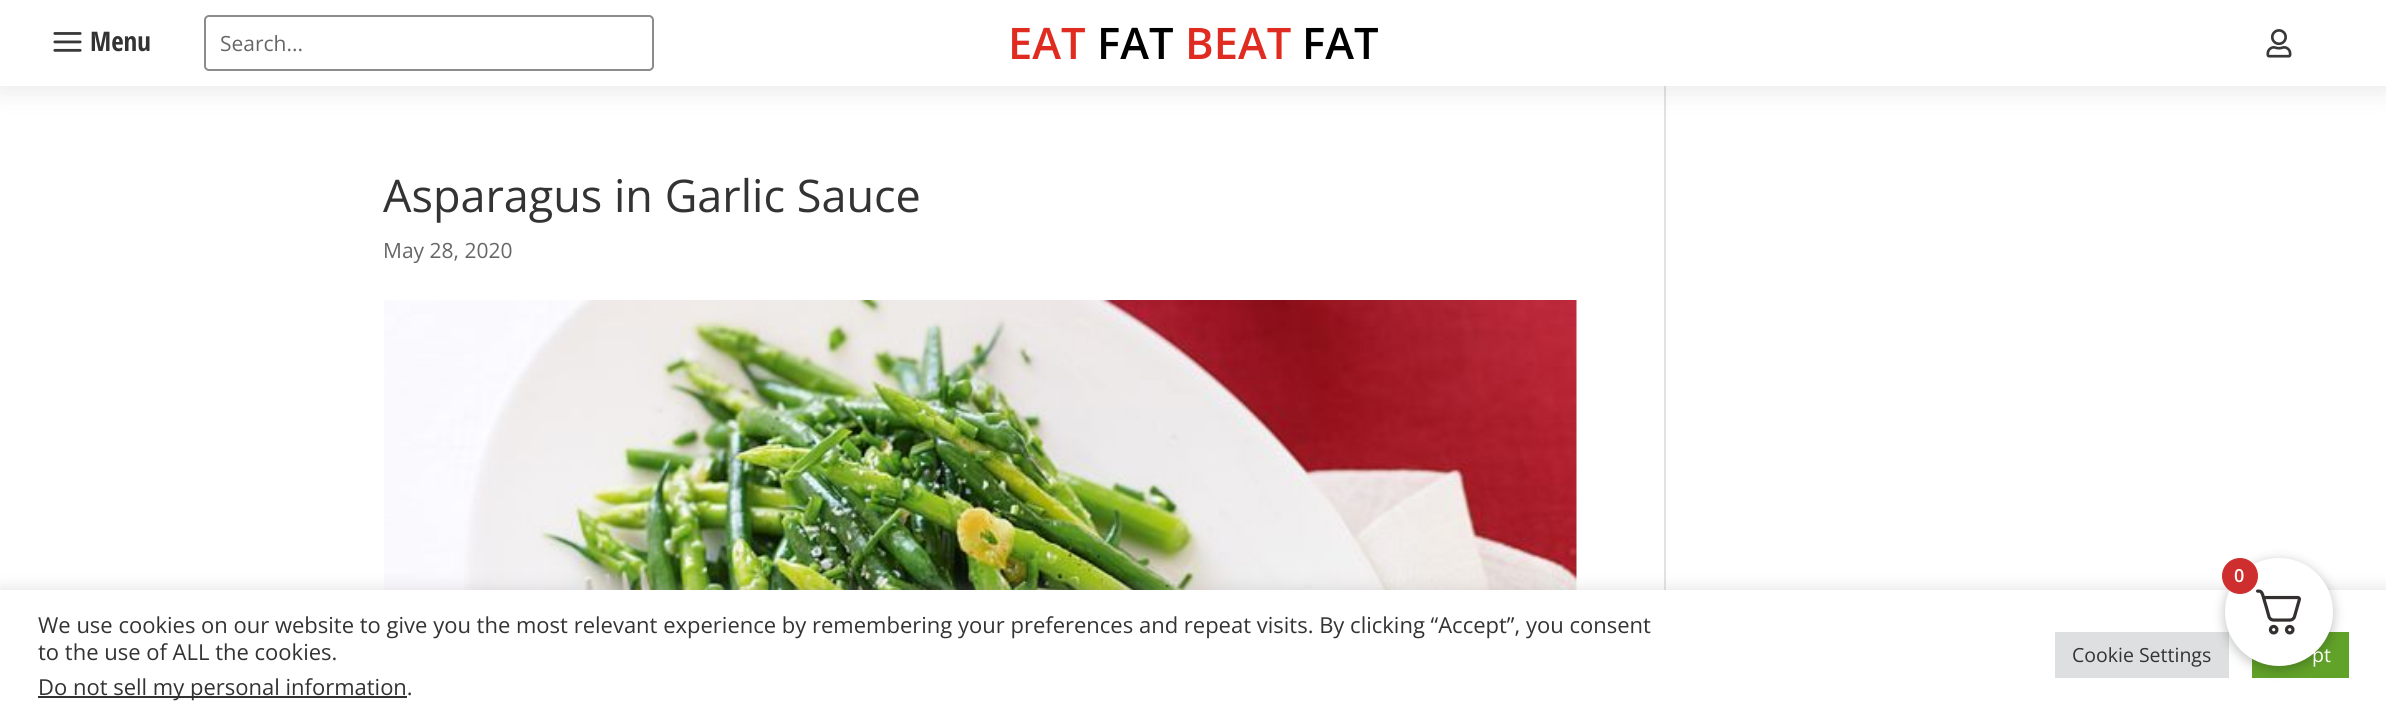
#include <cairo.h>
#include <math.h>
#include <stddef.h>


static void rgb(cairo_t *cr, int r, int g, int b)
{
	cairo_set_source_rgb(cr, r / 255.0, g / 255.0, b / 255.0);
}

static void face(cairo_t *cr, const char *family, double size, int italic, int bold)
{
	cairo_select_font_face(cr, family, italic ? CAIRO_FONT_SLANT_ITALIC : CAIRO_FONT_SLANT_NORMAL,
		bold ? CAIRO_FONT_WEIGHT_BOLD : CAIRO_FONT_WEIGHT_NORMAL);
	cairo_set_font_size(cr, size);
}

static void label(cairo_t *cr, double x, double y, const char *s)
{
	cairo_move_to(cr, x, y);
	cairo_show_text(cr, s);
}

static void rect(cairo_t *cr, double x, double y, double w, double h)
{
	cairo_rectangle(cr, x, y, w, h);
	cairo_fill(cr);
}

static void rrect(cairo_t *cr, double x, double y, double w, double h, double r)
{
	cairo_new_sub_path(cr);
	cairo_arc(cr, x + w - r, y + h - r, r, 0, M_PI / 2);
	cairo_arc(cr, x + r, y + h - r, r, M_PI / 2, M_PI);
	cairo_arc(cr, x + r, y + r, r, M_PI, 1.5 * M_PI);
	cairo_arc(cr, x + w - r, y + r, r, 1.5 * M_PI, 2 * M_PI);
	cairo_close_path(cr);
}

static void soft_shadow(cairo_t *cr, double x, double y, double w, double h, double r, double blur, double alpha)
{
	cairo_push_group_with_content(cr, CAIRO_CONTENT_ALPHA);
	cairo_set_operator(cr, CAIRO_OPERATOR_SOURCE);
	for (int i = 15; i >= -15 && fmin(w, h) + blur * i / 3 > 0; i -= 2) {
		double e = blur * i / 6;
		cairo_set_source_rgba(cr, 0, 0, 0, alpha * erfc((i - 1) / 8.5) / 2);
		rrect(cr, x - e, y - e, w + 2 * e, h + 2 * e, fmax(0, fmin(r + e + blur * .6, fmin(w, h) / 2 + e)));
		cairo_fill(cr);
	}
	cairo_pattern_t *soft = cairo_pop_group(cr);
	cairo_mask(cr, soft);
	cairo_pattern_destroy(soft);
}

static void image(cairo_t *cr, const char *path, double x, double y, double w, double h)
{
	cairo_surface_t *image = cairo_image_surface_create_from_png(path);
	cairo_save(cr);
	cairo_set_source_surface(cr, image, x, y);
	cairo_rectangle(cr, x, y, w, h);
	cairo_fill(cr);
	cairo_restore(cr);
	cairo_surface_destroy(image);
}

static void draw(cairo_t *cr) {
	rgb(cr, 255, 255, 255);
	cairo_paint(cr);
	rgb(cr, 226, 226, 226);
	rect(cr, 1664, 86, 2, 504);
	rgb(cr, 0, 0, 0);
	soft_shadow(cr, 0, 3, 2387, 86, 0, 13.5, 0.1);
	rgb(cr, 255, 255, 255);
	rect(cr, 0, 0, 2386, 86);
	image(cr, "image0.png", 53, 32, 29, 20);
	face(cr, "Open Sans Condensed", 27, 0, 1);
	rgb(cr, 51, 51, 51);
	label(cr, 90, 51, "Menu");
	rrect(cr, 205, 16, 448, 54, 4);
	rgb(cr, 140, 140, 140);
	cairo_stroke(cr);
	face(cr, "Open Sans", 21, 0, 0);
	rgb(cr, 102, 102, 102);
	label(cr, 220, 51, "Search...");
	face(cr, "Open Sans SemiBold", 43.5, 0, 0);
	rgb(cr, 224, 43, 32);
	label(cr, 1008, 59, "EAT");
	rgb(cr, 0, 0, 0);
	label(cr, 1097, 59, "FAT");
	rgb(cr, 224, 43, 32);
	label(cr, 1185, 59, "BEAT");
	rgb(cr, 0, 0, 0);
	label(cr, 1302, 59, "FAT");
	image(cr, "image1.png", 2266, 29, 26, 29);
	face(cr, "Open Sans", 45, 0, 0);
	rgb(cr, 51, 51, 51);
	label(cr, 383, 212, "Asparagus in Garlic Sauce");
	face(cr, "Open Sans", 21, 0, 0);
	rgb(cr, 102, 102, 102);
	label(cr, 383, 258, "May 28, 2020");
	image(cr, "image2.png", 384, 300, 1193, 290);
	rgb(cr, 172, 171, 171);
	soft_shadow(cr, 0, 588, 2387, 131, 0, 7.5, 0.3);
	rgb(cr, 255, 255, 255);
	rect(cr, 0, 590, 2386, 130);
	rgb(cr, 222, 223, 224);
	rect(cr, 2055, 632, 174, 46);
	rgb(cr, 97, 162, 41);
	rect(cr, 2252, 632, 97, 46);
	rgb(cr, 0, 0, 0);
	soft_shadow(cr, 2225, 561, 108, 108, 54, 6, 0.25);
	rgb(cr, 255, 255, 255);
	cairo_arc(cr, 2279, 612, 54, 0, 2 * M_PI);
	cairo_fill(cr);
	image(cr, "image3.png", 2256, 589, 45, 46);
	rgb(cr, 207, 46, 46);
	cairo_arc(cr, 2240, 576, 18, 0, 2 * M_PI);
	cairo_fill(cr);
	face(cr, "Open Sans SemiBold", 18, 0, 0);
	rgb(cr, 255, 255, 255);
	label(cr, 2234, 582, "0");
	face(cr, "Open Sans", 22, 0, 0);
	rgb(cr, 51, 51, 51);
	label(cr, 38, 633, "We use cookies on our website to give you the most relevant experience by remembering your preferences and repeat visits. By clicking “Accept”, you consent");
	label(cr, 38, 660, "to the use of ALL the cookies.");
	rect(cr, 38, 696, 369, 2);
	label(cr, 38, 695, "Do not sell my personal information.");
	face(cr, "Open Sans", 19.5, 0, 0);
	label(cr, 2072, 662, "Cookie Settings");
	rgb(cr, 255, 255, 255);
	label(cr, 2312, 662, "pt");
}

int main(void) {
	cairo_surface_t *surface = cairo_image_surface_create(CAIRO_FORMAT_RGB24, 2386, 720);
	cairo_t *cr = cairo_create(surface);
	cairo_font_options_t *options = cairo_font_options_create();
	cairo_font_options_set_hint_metrics(options, CAIRO_HINT_METRICS_OFF);
	cairo_font_options_set_hint_style(options, CAIRO_HINT_STYLE_NONE);
	cairo_set_font_options(cr, options);
	cairo_set_miter_limit(cr, 4);
	draw(cr);
	cairo_surface_write_to_png(surface, "render.png");
	cairo_font_options_destroy(options);
	cairo_destroy(cr);
	cairo_surface_destroy(surface);
	return 0;
}
